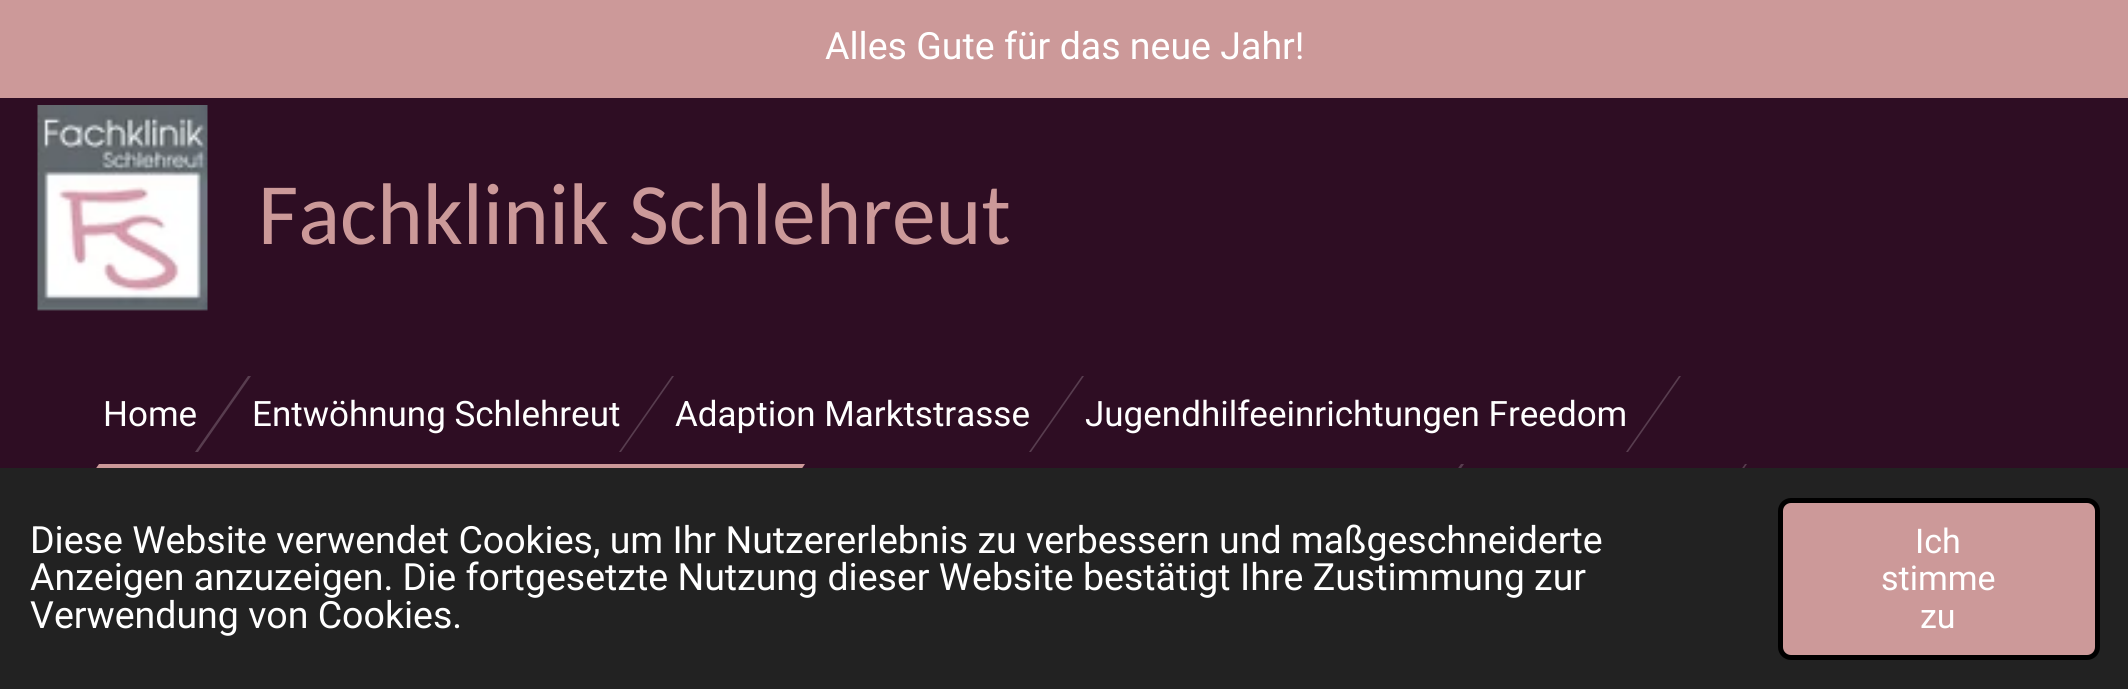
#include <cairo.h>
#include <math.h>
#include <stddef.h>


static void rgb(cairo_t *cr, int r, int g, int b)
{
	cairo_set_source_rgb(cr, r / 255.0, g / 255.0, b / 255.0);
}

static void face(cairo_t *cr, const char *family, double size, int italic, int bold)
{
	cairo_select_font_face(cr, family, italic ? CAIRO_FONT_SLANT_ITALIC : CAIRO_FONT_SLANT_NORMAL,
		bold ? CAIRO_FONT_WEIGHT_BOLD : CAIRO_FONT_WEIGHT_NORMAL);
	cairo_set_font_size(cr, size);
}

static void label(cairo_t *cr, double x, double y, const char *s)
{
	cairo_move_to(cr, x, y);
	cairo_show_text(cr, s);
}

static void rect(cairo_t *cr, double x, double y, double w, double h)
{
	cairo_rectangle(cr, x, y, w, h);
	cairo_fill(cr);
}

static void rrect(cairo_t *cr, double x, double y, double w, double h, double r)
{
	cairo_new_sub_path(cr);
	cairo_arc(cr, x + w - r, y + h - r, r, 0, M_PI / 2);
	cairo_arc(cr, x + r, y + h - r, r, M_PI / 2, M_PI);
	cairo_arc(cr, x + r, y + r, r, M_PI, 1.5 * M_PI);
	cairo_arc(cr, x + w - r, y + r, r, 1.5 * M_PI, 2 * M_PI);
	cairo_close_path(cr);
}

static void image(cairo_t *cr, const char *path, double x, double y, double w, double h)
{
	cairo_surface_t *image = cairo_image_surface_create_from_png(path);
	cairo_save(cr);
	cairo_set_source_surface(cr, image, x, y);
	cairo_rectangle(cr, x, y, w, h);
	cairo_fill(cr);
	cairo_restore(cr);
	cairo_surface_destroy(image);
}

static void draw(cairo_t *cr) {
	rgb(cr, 204, 153, 153);
	cairo_paint(cr);
	face(cr, "Roboto", 37.5, 0, 0);
	rgb(cr, 255, 255, 255);
	label(cr, 825, 59, "Alles Gute für das neue Jahr!");
	rgb(cr, 46, 13, 35);
	rect(cr, 0, 98, 2128, 370);
	image(cr, "image0.png", 37, 105, 171, 206);
	face(cr, "Carlito", 87.5, 0, 0);
	rgb(cr, 204, 153, 153);
	label(cr, 258, 244, "Fachklinik Schlehreut");
	rgb(cr, 88, 61, 79);
	cairo_new_path(cr);
	cairo_move_to(cr, 248, 376);
	cairo_line_to(cr, 251, 376);
	cairo_line_to(cr, 198, 452);
	cairo_line_to(cr, 195, 452);
	cairo_close_path(cr);
	cairo_fill(cr);
	face(cr, "Roboto", 35, 0, 0);
	rgb(cr, 255, 255, 255);
	label(cr, 103, 426, "Home");
	label(cr, 252, 426, "Entwöhnung Schlehreut");
	rgb(cr, 88, 61, 79);
	cairo_new_path(cr);
	cairo_move_to(cr, 672, 376);
	cairo_line_to(cr, 674, 376);
	cairo_line_to(cr, 621, 452);
	cairo_line_to(cr, 619, 452);
	cairo_close_path(cr);
	cairo_fill(cr);
	rgb(cr, 255, 255, 255);
	label(cr, 675, 426, "Adaption Marktstrasse");
	rgb(cr, 88, 61, 79);
	cairo_new_path(cr);
	cairo_move_to(cr, 1082, 376);
	cairo_line_to(cr, 1084, 376);
	cairo_line_to(cr, 1031, 452);
	cairo_line_to(cr, 1029, 452);
	cairo_close_path(cr);
	cairo_fill(cr);
	rgb(cr, 255, 255, 255);
	label(cr, 1085, 426, "Jugendhilfeeinrichtungen Freedom");
	rgb(cr, 88, 61, 79);
	cairo_new_path(cr);
	cairo_move_to(cr, 1679, 376);
	cairo_line_to(cr, 1681, 376);
	cairo_line_to(cr, 1628, 452);
	cairo_line_to(cr, 1626, 452);
	cairo_close_path(cr);
	cairo_fill(cr);
	rgb(cr, 204, 153, 153);
	cairo_new_path(cr);
	cairo_move_to(cr, 99, 464);
	cairo_line_to(cr, 805, 464);
	cairo_line_to(cr, 753, 540);
	cairo_line_to(cr, 46, 540);
	cairo_close_path(cr);
	cairo_fill(cr);
	rgb(cr, 88, 61, 79);
	cairo_new_path(cr);
	cairo_move_to(cr, 1461, 464);
	cairo_line_to(cr, 1464, 464);
	cairo_line_to(cr, 1411, 540);
	cairo_line_to(cr, 1408, 540);
	cairo_close_path(cr);
	cairo_fill(cr);
	cairo_new_path(cr);
	cairo_move_to(cr, 1745, 464);
	cairo_line_to(cr, 1747, 464);
	cairo_line_to(cr, 1694, 540);
	cairo_line_to(cr, 1692, 540);
	cairo_close_path(cr);
	cairo_fill(cr);
	rgb(cr, 34, 34, 34);
	rect(cr, 0, 468, 2128, 221);
	face(cr, "Roboto", 37.5, 0, 0);
	rgb(cr, 255, 255, 255);
	label(cr, 30, 553, "Diese Website verwendet Cookies, um Ihr Nutzererlebnis zu verbessern und maßgeschneiderte");
	label(cr, 30, 590, "Anzeigen anzuzeigen. Die fortgesetzte Nutzung dieser Website bestätigt Ihre Zustimmung zur");
	label(cr, 30, 628, "Verwendung von Cookies.");
	rgb(cr, 204, 153, 153);
	rrect(cr, 1780.5, 500.5, 317, 157, 10.5);
	cairo_fill_preserve(cr);
	rgb(cr, 0, 0, 0);
	cairo_set_line_width(cr, 5);
	cairo_stroke(cr);
	face(cr, "Roboto", 34, 0, 0);
	rgb(cr, 255, 255, 255);
	label(cr, 1915, 553, "Ich");
	label(cr, 1881, 590, "stimme");
	label(cr, 1920, 628, "zu");
}

int main(void) {
	cairo_surface_t *surface = cairo_image_surface_create(CAIRO_FORMAT_RGB24, 2128, 689);
	cairo_t *cr = cairo_create(surface);
	cairo_font_options_t *options = cairo_font_options_create();
	cairo_font_options_set_hint_metrics(options, CAIRO_HINT_METRICS_OFF);
	cairo_font_options_set_hint_style(options, CAIRO_HINT_STYLE_NONE);
	cairo_set_font_options(cr, options);
	cairo_set_miter_limit(cr, 4);
	draw(cr);
	cairo_surface_write_to_png(surface, "render.png");
	cairo_font_options_destroy(options);
	cairo_destroy(cr);
	cairo_surface_destroy(surface);
	return 0;
}
